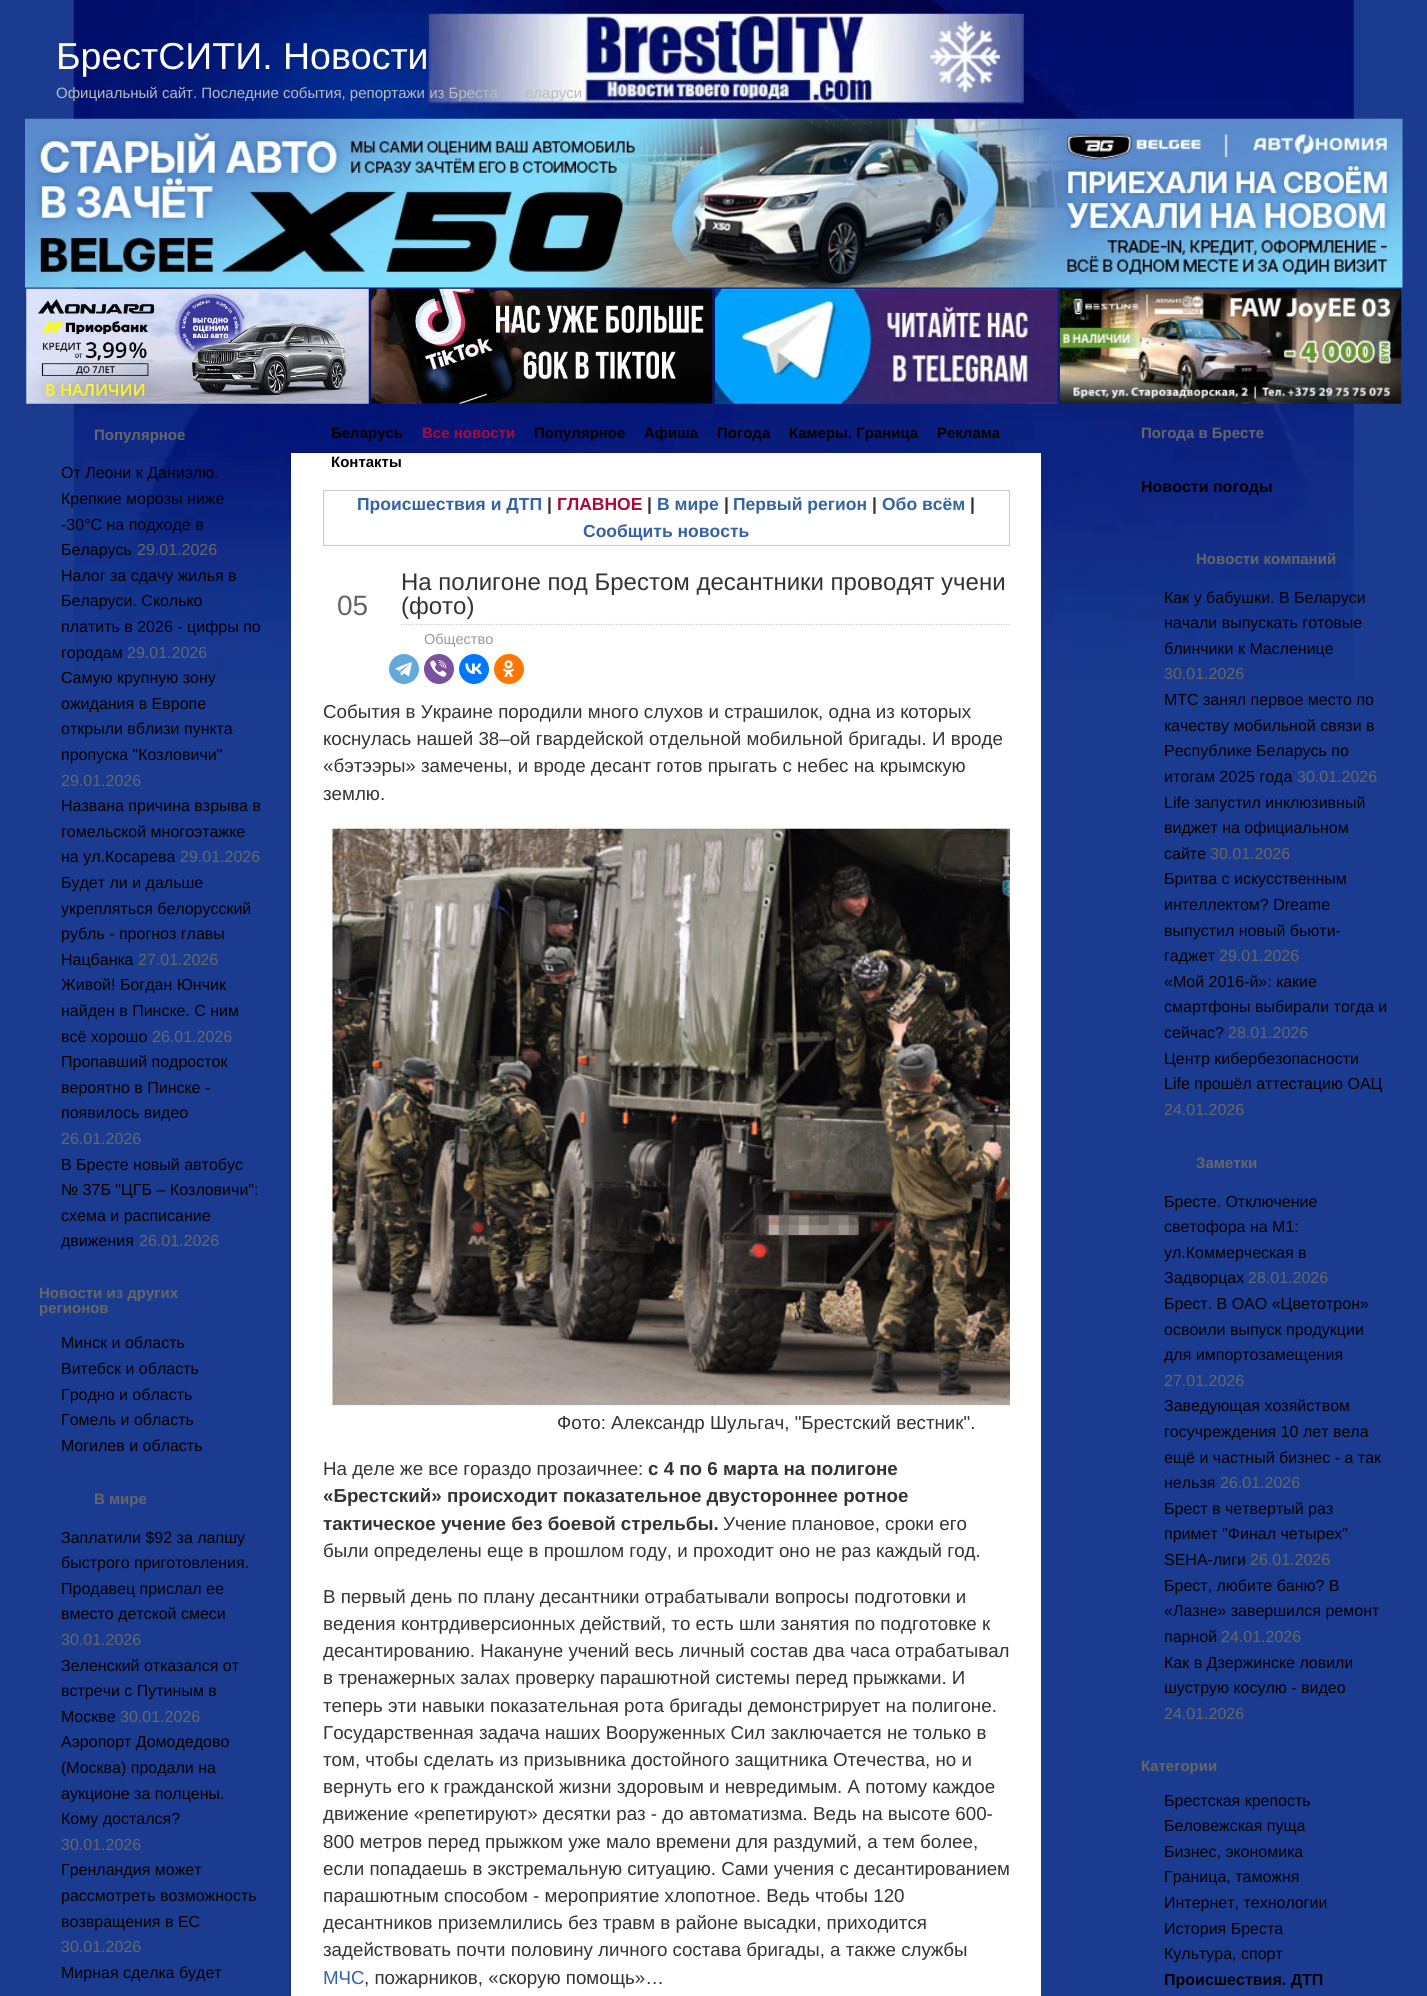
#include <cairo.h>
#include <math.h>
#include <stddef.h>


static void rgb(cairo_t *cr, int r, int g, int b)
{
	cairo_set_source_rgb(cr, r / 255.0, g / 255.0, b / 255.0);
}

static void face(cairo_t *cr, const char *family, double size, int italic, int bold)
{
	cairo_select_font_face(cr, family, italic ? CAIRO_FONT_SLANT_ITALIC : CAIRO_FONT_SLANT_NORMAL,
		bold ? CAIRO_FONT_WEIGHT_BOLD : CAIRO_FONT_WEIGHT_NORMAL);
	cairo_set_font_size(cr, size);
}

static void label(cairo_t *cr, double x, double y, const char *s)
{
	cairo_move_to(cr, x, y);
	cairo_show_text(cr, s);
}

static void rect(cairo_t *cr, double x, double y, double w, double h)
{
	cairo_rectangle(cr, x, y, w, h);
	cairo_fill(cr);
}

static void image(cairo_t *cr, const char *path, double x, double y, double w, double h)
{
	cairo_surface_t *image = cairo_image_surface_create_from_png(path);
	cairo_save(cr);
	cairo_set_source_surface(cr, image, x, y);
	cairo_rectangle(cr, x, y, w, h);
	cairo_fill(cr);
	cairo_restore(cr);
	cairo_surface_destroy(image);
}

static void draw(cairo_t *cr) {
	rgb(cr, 27, 59, 144);
	cairo_paint(cr);
	image(cr, "image0.png", 73, 0, 1281, 680);
	face(cr, "Liberation Sans", 37.5, 0, 0);
	rgb(cr, 255, 255, 255);
	label(cr, 56, 69, "БрестСИТИ. Новости");
	face(cr, "Liberation Sans", 15, 0, 0);
	rgb(cr, 187, 187, 187);
	label(cr, 56, 98, "Официальный сайт. Последние события, репортажи из Бреста");
	label(cr, 525, 98, "еларуси");
	image(cr, "image1.png", 25, 118, 1378, 170);
	image(cr, "image2.png", 26, 288, 343, 116);
	image(cr, "image3.png", 371, 288, 342, 116);
	image(cr, "image4.png", 715, 288, 343, 116);
	image(cr, "image5.png", 1060, 288, 342, 116);
	face(cr, "Liberation Sans", 15, 0, 1);
	rgb(cr, 102, 102, 102);
	label(cr, 94, 440, "Популярное");
	face(cr, "Liberation Sans", 16, 0, 0);
	rgb(cr, 0, 0, 0);
	label(cr, 61, 478, "От Леони к Даниэлю.");
	label(cr, 61, 504, "Крепкие морозы ниже");
	label(cr, 61, 530, "-30°С на подходе в");
	label(cr, 61, 555, "Беларусь");
	rgb(cr, 102, 102, 102);
	label(cr, 137, 555, "29.01.2026");
	rgb(cr, 0, 0, 0);
	label(cr, 61, 581, "Налог за сдачу жилья в");
	label(cr, 61, 606, "Беларуси. Сколько");
	label(cr, 61, 632, "платить в 2026 - цифры по");
	label(cr, 61, 658, "городам");
	rgb(cr, 102, 102, 102);
	label(cr, 127, 658, "29.01.2026");
	rgb(cr, 0, 0, 0);
	label(cr, 61, 683, "Самую крупную зону");
	label(cr, 61, 709, "ожидания в Европе");
	label(cr, 61, 734, "открыли вблизи пункта");
	label(cr, 61, 760, "пропуска \"Козловичи\"");
	rgb(cr, 102, 102, 102);
	label(cr, 61, 786, "29.01.2026");
	rgb(cr, 0, 0, 0);
	label(cr, 61, 811, "Названа причина взрыва в");
	label(cr, 61, 837, "гомельской многоэтажке");
	label(cr, 61, 862, "на ул.Косарева");
	rgb(cr, 102, 102, 102);
	label(cr, 180, 862, "29.01.2026");
	rgb(cr, 0, 0, 0);
	label(cr, 61, 888, "Будет ли и дальше");
	label(cr, 61, 914, "укрепляться белорусский");
	label(cr, 61, 939, "рубль - прогноз главы");
	label(cr, 61, 965, "Нацбанка");
	rgb(cr, 102, 102, 102);
	label(cr, 138, 965, "27.01.2026");
	rgb(cr, 0, 0, 0);
	label(cr, 61, 990, "Живой! Богдан Юнчик");
	label(cr, 61, 1016, "найден в Пинске. С ним");
	label(cr, 61, 1042, "всё хорошо");
	rgb(cr, 102, 102, 102);
	label(cr, 152, 1042, "26.01.2026");
	rgb(cr, 0, 0, 0);
	label(cr, 61, 1067, "Пропавший подросток");
	label(cr, 61, 1093, "вероятно в Пинске -");
	label(cr, 61, 1118, "появилось видео");
	rgb(cr, 102, 102, 102);
	label(cr, 61, 1144, "26.01.2026");
	rgb(cr, 0, 0, 0);
	label(cr, 61, 1170, "В Бресте новый автобус");
	label(cr, 61, 1195, "№ 37Б \"ЦГБ – Козловичи\":");
	label(cr, 61, 1221, "схема и расписание");
	label(cr, 61, 1246, "движения");
	rgb(cr, 102, 102, 102);
	label(cr, 139, 1246, "26.01.2026");
	face(cr, "Liberation Sans", 15, 0, 1);
	label(cr, 39, 1298, "Новости из других");
	label(cr, 39, 1313, "регионов");
	face(cr, "Liberation Sans", 16, 0, 0);
	rgb(cr, 0, 0, 0);
	label(cr, 61, 1348, "Минск и область");
	label(cr, 61, 1374, "Витебск и область");
	label(cr, 61, 1400, "Гродно и область");
	label(cr, 61, 1425, "Гомель и область");
	label(cr, 61, 1451, "Могилев и область");
	face(cr, "Liberation Sans", 15, 0, 1);
	rgb(cr, 102, 102, 102);
	label(cr, 94, 1504, "В мире");
	face(cr, "Liberation Sans", 16, 0, 0);
	rgb(cr, 0, 0, 0);
	label(cr, 61, 1543, "Заплатили $92 за лапшу");
	label(cr, 61, 1568, "быстрого приготовления.");
	label(cr, 61, 1594, "Продавец прислал ее");
	label(cr, 61, 1619, "вместо детской смеси");
	rgb(cr, 102, 102, 102);
	label(cr, 61, 1645, "30.01.2026");
	rgb(cr, 0, 0, 0);
	label(cr, 61, 1671, "Зеленский отказался от");
	label(cr, 61, 1696, "встречи с Путиным в");
	label(cr, 61, 1722, "Москве");
	rgb(cr, 102, 102, 102);
	label(cr, 120, 1722, "30.01.2026");
	rgb(cr, 0, 0, 0);
	label(cr, 61, 1747, "Аэропорт Домодедово");
	label(cr, 61, 1773, "(Москва) продали на");
	label(cr, 61, 1799, "аукционе за полцены.");
	label(cr, 61, 1824, "Кому достался?");
	rgb(cr, 102, 102, 102);
	label(cr, 61, 1850, "30.01.2026");
	rgb(cr, 0, 0, 0);
	label(cr, 61, 1875, "Гренландия может");
	label(cr, 61, 1901, "рассмотреть возможность");
	label(cr, 61, 1927, "возвращения в ЕС");
	rgb(cr, 102, 102, 102);
	label(cr, 61, 1952, "30.01.2026");
	rgb(cr, 0, 0, 0);
	label(cr, 61, 1978, "Мирная сделка будет");
	face(cr, "Liberation Sans", 15, 0, 1);
	label(cr, 331, 438, "Беларусь");
	rgb(cr, 170, 9, 58);
	label(cr, 422, 438, "Все новости");
	rgb(cr, 0, 0, 0);
	label(cr, 534, 438, "Популярное");
	label(cr, 644, 438, "Афиша");
	label(cr, 717, 438, "Погода");
	label(cr, 789, 438, "Камеры. Граница");
	label(cr, 937, 438, "Реклама");
	rgb(cr, 255, 255, 255);
	rect(cr, 291, 453, 750, 1543);
	rgb(cr, 0, 0, 0);
	label(cr, 331, 467, "Контакты");
	cairo_rectangle(cr, 323.5, 490.5, 686, 55);
	rgb(cr, 202, 201, 201);
	cairo_set_line_width(cr, 1);
	cairo_stroke(cr);
	face(cr, "Liberation Sans", 17.5, 0, 1);
	rgb(cr, 51, 99, 163);
	label(cr, 357, 510, "Происшествия и ДТП");
	rgb(cr, 51, 51, 51);
	label(cr, 547, 510, "|");
	rgb(cr, 170, 9, 58);
	label(cr, 557, 510, "ГЛАВНОЕ");
	rgb(cr, 51, 51, 51);
	label(cr, 647, 510, "|");
	rgb(cr, 51, 99, 163);
	label(cr, 657, 510, "В мире");
	rgb(cr, 51, 51, 51);
	label(cr, 724, 510, "|");
	rgb(cr, 51, 99, 163);
	label(cr, 733, 510, "Первый регион");
	rgb(cr, 51, 51, 51);
	label(cr, 872, 510, "|");
	rgb(cr, 51, 99, 163);
	label(cr, 882, 510, "Обо всём");
	rgb(cr, 51, 51, 51);
	label(cr, 970, 510, "|");
	rgb(cr, 51, 99, 163);
	label(cr, 583, 537, "Сообщить новость");
	face(cr, "Liberation Sans", 28, 0, 0);
	rgb(cr, 102, 102, 102);
	label(cr, 337, 615, "05");
	cairo_save(cr);
	cairo_rectangle(cr, 323, 565, 687, 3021);
	cairo_clip(cr);
	cairo_new_path(cr);
	cairo_move_to(cr, 401, 624.5);
	cairo_line_to(cr, 1021, 624.5);
	rgb(cr, 204, 204, 204);
	cairo_set_line_width(cr, 1.2);
	cairo_set_dash(cr, (double[]){1.25, 1.25}, 2, 0);
	cairo_stroke(cr);
	cairo_restore(cr);
	face(cr, "Liberation Sans", 24, 0, 0);
	rgb(cr, 51, 51, 51);
	label(cr, 401, 590, "На полигоне под Брестом десантники проводят учени");
	label(cr, 401, 614, "(фото)");
	face(cr, "Liberation Sans", 14.5, 0, 0);
	rgb(cr, 153, 153, 153);
	label(cr, 424, 644, "Общество");
	rgb(cr, 100, 169, 220);
	cairo_new_path(cr);
	cairo_arc(cr, 404, 669, 15, 0, 2 * M_PI);
	cairo_fill(cr);
	image(cr, "image6.png", 395, 662, 17, 15);
	rgb(cr, 123, 81, 157);
	cairo_arc(cr, 439, 669, 15, 0, 2 * M_PI);
	cairo_fill(cr);
	image(cr, "image7.png", 430, 660, 17, 17);
	rgb(cr, 0, 119, 255);
	cairo_arc(cr, 474, 669, 15, 0, 2 * M_PI);
	cairo_fill(cr);
	image(cr, "image8.png", 465, 663, 17, 11);
	rgb(cr, 255, 119, 0);
	cairo_arc(cr, 509, 669, 15, 0, 2 * M_PI);
	cairo_fill(cr);
	image(cr, "image9.png", 503, 660, 12, 17);
	face(cr, "Liberation Sans", 18.75, 0, 0);
	rgb(cr, 51, 51, 51);
	label(cr, 323, 718, "События в Украине породили много слухов и страшилок, одна из которых");
	label(cr, 323, 745, "коснулась нашей 38–ой гвардейской отдельной мобильной бригады. И вроде");
	label(cr, 323, 772, "«бэтээры» замечены, и вроде десант готов прыгать с небес на крымскую");
	label(cr, 323, 800, "землю.");
	image(cr, "image10.png", 329, 825, 681, 581);
	label(cr, 557, 1429, "Фото: Александр Шульгач, \"Брестский вестник\".");
	label(cr, 323, 1475, "На деле же все гораздо прозаичнее:");
	face(cr, "Liberation Sans", 18.75, 0, 1);
	label(cr, 648, 1475, "с 4 по 6 марта на полигоне");
	label(cr, 323, 1502, "«Брестский» происходит показательное двустороннее ротное");
	label(cr, 323, 1530, "тактическое учение без боевой стрельбы.");
	face(cr, "Liberation Sans", 18.75, 0, 0);
	label(cr, 723, 1530, "Учение плановое, сроки его");
	label(cr, 323, 1557, "были определены еще в прошлом году, и проходит оно не раз каждый год.");
	label(cr, 323, 1603, "В первый день по плану десантники отрабатывали вопросы подготовки и");
	label(cr, 323, 1630, "ведения контрдиверсионных действий, то есть шли занятия по подготовке к");
	cairo_save(cr);
	cairo_rectangle(cr, 323, 565, 687, 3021);
	cairo_clip(cr);
	label(cr, 323, 1657, "десантированию. Накануне учений весь личный состав два часа отрабатывал");
	cairo_restore(cr);
	label(cr, 323, 1684, "в тренажерных залах проверку парашютной системы перед прыжками. И");
	label(cr, 323, 1712, "теперь эти навыки показательная рота бригады демонстрирует на полигоне.");
	label(cr, 323, 1739, "Государственная задача наших Вооруженных Сил заключается не только в");
	label(cr, 323, 1766, "том, чтобы сделать из призывника достойного защитника Отечества, но и");
	label(cr, 323, 1793, "вернуть его к гражданской жизни здоровым и невредимым. А потому каждое");
	cairo_save(cr);
	cairo_rectangle(cr, 323, 565, 687, 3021);
	cairo_clip(cr);
	label(cr, 323, 1820, "движение «репетируют» десятки раз - до автоматизма. Ведь на высоте 600-");
	cairo_restore(cr);
	label(cr, 323, 1848, "800 метров перед прыжком уже мало времени для раздумий, а тем более,");
	label(cr, 323, 1875, "если попадаешь в экстремальную ситуацию. Сами учения с десантированием");
	label(cr, 323, 1902, "парашютным способом - мероприятие хлопотное. Ведь чтобы 120");
	cairo_save(cr);
	cairo_rectangle(cr, 323, 565, 687, 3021);
	cairo_clip(cr);
	label(cr, 323, 1929, "десантников приземлились без травм в районе высадки, приходится");
	cairo_restore(cr);
	label(cr, 323, 1956, "задействовать почти половину личного состава бригады, а также службы");
	rgb(cr, 51, 99, 163);
	label(cr, 323, 1984, "МЧС");
	rgb(cr, 51, 51, 51);
	label(cr, 364, 1984, ", пожарников, «скорую помощь»…");
	face(cr, "Liberation Sans", 15, 0, 1);
	rgb(cr, 102, 102, 102);
	label(cr, 1141, 438, "Погода в Бресте");
	face(cr, "Liberation Sans", 16, 0, 1);
	rgb(cr, 0, 0, 0);
	label(cr, 1141, 492, "Новости погоды");
	face(cr, "Liberation Sans", 15, 0, 1);
	rgb(cr, 102, 102, 102);
	label(cr, 1196, 564, "Новости компаний");
	face(cr, "Liberation Sans", 16, 0, 0);
	rgb(cr, 0, 0, 0);
	label(cr, 1164, 603, "Как у бабушки. В Беларуси");
	label(cr, 1164, 628, "начали выпускать готовые");
	label(cr, 1164, 654, "блинчики к Масленице");
	rgb(cr, 102, 102, 102);
	label(cr, 1164, 679, "30.01.2026");
	rgb(cr, 0, 0, 0);
	label(cr, 1164, 705, "МТС занял первое место по");
	label(cr, 1164, 731, "качеству мобильной связи в");
	label(cr, 1164, 756, "Республике Беларусь по");
	label(cr, 1164, 782, "итогам 2025 года");
	rgb(cr, 102, 102, 102);
	label(cr, 1297, 782, "30.01.2026");
	rgb(cr, 0, 0, 0);
	label(cr, 1164, 808, "Life запустил инклюзивный");
	label(cr, 1164, 833, "виджет на официальном");
	label(cr, 1164, 859, "сайте");
	rgb(cr, 102, 102, 102);
	label(cr, 1210, 859, "30.01.2026");
	rgb(cr, 0, 0, 0);
	label(cr, 1164, 884, "Бритва с искусственным");
	label(cr, 1164, 910, "интеллектом? Dreame");
	label(cr, 1164, 936, "выпустил новый бьюти-");
	label(cr, 1164, 961, "гаджет");
	rgb(cr, 102, 102, 102);
	label(cr, 1219, 961, "29.01.2026");
	rgb(cr, 0, 0, 0);
	label(cr, 1164, 987, "«Мой 2016-й»: какие");
	label(cr, 1164, 1012, "смартфоны выбирали тогда и");
	label(cr, 1164, 1038, "сейчас?");
	rgb(cr, 102, 102, 102);
	label(cr, 1228, 1038, "28.01.2026");
	rgb(cr, 0, 0, 0);
	label(cr, 1164, 1064, "Центр кибербезопасности");
	label(cr, 1164, 1089, "Life прошёл аттестацию ОАЦ");
	rgb(cr, 102, 102, 102);
	label(cr, 1164, 1115, "24.01.2026");
	face(cr, "Liberation Sans", 15, 0, 1);
	label(cr, 1196, 1168, "Заметки");
	face(cr, "Liberation Sans", 16, 0, 0);
	rgb(cr, 0, 0, 0);
	label(cr, 1164, 1207, "Бресте. Отключение");
	label(cr, 1164, 1232, "светофора на М1:");
	label(cr, 1164, 1258, "ул.Коммерческая в");
	label(cr, 1164, 1283, "Задворцах");
	rgb(cr, 102, 102, 102);
	label(cr, 1248, 1283, "28.01.2026");
	rgb(cr, 0, 0, 0);
	label(cr, 1164, 1309, "Брест. В ОАО «Цветотрон»");
	label(cr, 1164, 1335, "освоили выпуск продукции");
	label(cr, 1164, 1360, "для импортозамещения");
	rgb(cr, 102, 102, 102);
	label(cr, 1164, 1386, "27.01.2026");
	rgb(cr, 0, 0, 0);
	label(cr, 1164, 1411, "Заведующая хозяйством");
	label(cr, 1164, 1437, "госучреждения 10 лет вела");
	label(cr, 1164, 1463, "ещё и частный бизнес - а так");
	label(cr, 1164, 1488, "нельзя");
	rgb(cr, 102, 102, 102);
	label(cr, 1220, 1488, "26.01.2026");
	rgb(cr, 0, 0, 0);
	label(cr, 1164, 1514, "Брест в четвертый раз");
	label(cr, 1164, 1539, "примет \"Финал четырех\"");
	label(cr, 1164, 1565, "SEHA-лиги");
	rgb(cr, 102, 102, 102);
	label(cr, 1250, 1565, "26.01.2026");
	rgb(cr, 0, 0, 0);
	label(cr, 1164, 1591, "Брест, любите баню? В");
	label(cr, 1164, 1616, "«Лазне» завершился ремонт");
	label(cr, 1164, 1642, "парной");
	rgb(cr, 102, 102, 102);
	label(cr, 1221, 1642, "24.01.2026");
	rgb(cr, 0, 0, 0);
	label(cr, 1164, 1668, "Как в Дзержинске ловили");
	label(cr, 1164, 1693, "шуструю косулю - видео");
	rgb(cr, 102, 102, 102);
	label(cr, 1164, 1719, "24.01.2026");
	face(cr, "Liberation Sans", 15, 0, 1);
	label(cr, 1141, 1771, "Категории");
	face(cr, "Liberation Sans", 16, 0, 0);
	rgb(cr, 0, 0, 0);
	label(cr, 1164, 1806, "Брестская крепость");
	label(cr, 1164, 1831, "Беловежская пуща");
	label(cr, 1164, 1857, "Бизнес, экономика");
	label(cr, 1164, 1882, "Граница, таможня");
	label(cr, 1164, 1908, "Интернет, технологии");
	label(cr, 1164, 1934, "История Бреста");
	label(cr, 1164, 1959, "Культура, спорт");
	face(cr, "Liberation Sans", 16, 0, 1);
	label(cr, 1164, 1985, "Происшествия. ДТП");
}

int main(void) {
	cairo_surface_t *surface = cairo_image_surface_create(CAIRO_FORMAT_RGB24, 1427, 1996);
	cairo_t *cr = cairo_create(surface);
	cairo_font_options_t *options = cairo_font_options_create();
	cairo_font_options_set_hint_metrics(options, CAIRO_HINT_METRICS_OFF);
	cairo_font_options_set_hint_style(options, CAIRO_HINT_STYLE_NONE);
	cairo_set_font_options(cr, options);
	cairo_set_miter_limit(cr, 4);
	draw(cr);
	cairo_surface_write_to_png(surface, "render.png");
	cairo_font_options_destroy(options);
	cairo_destroy(cr);
	cairo_surface_destroy(surface);
	return 0;
}
